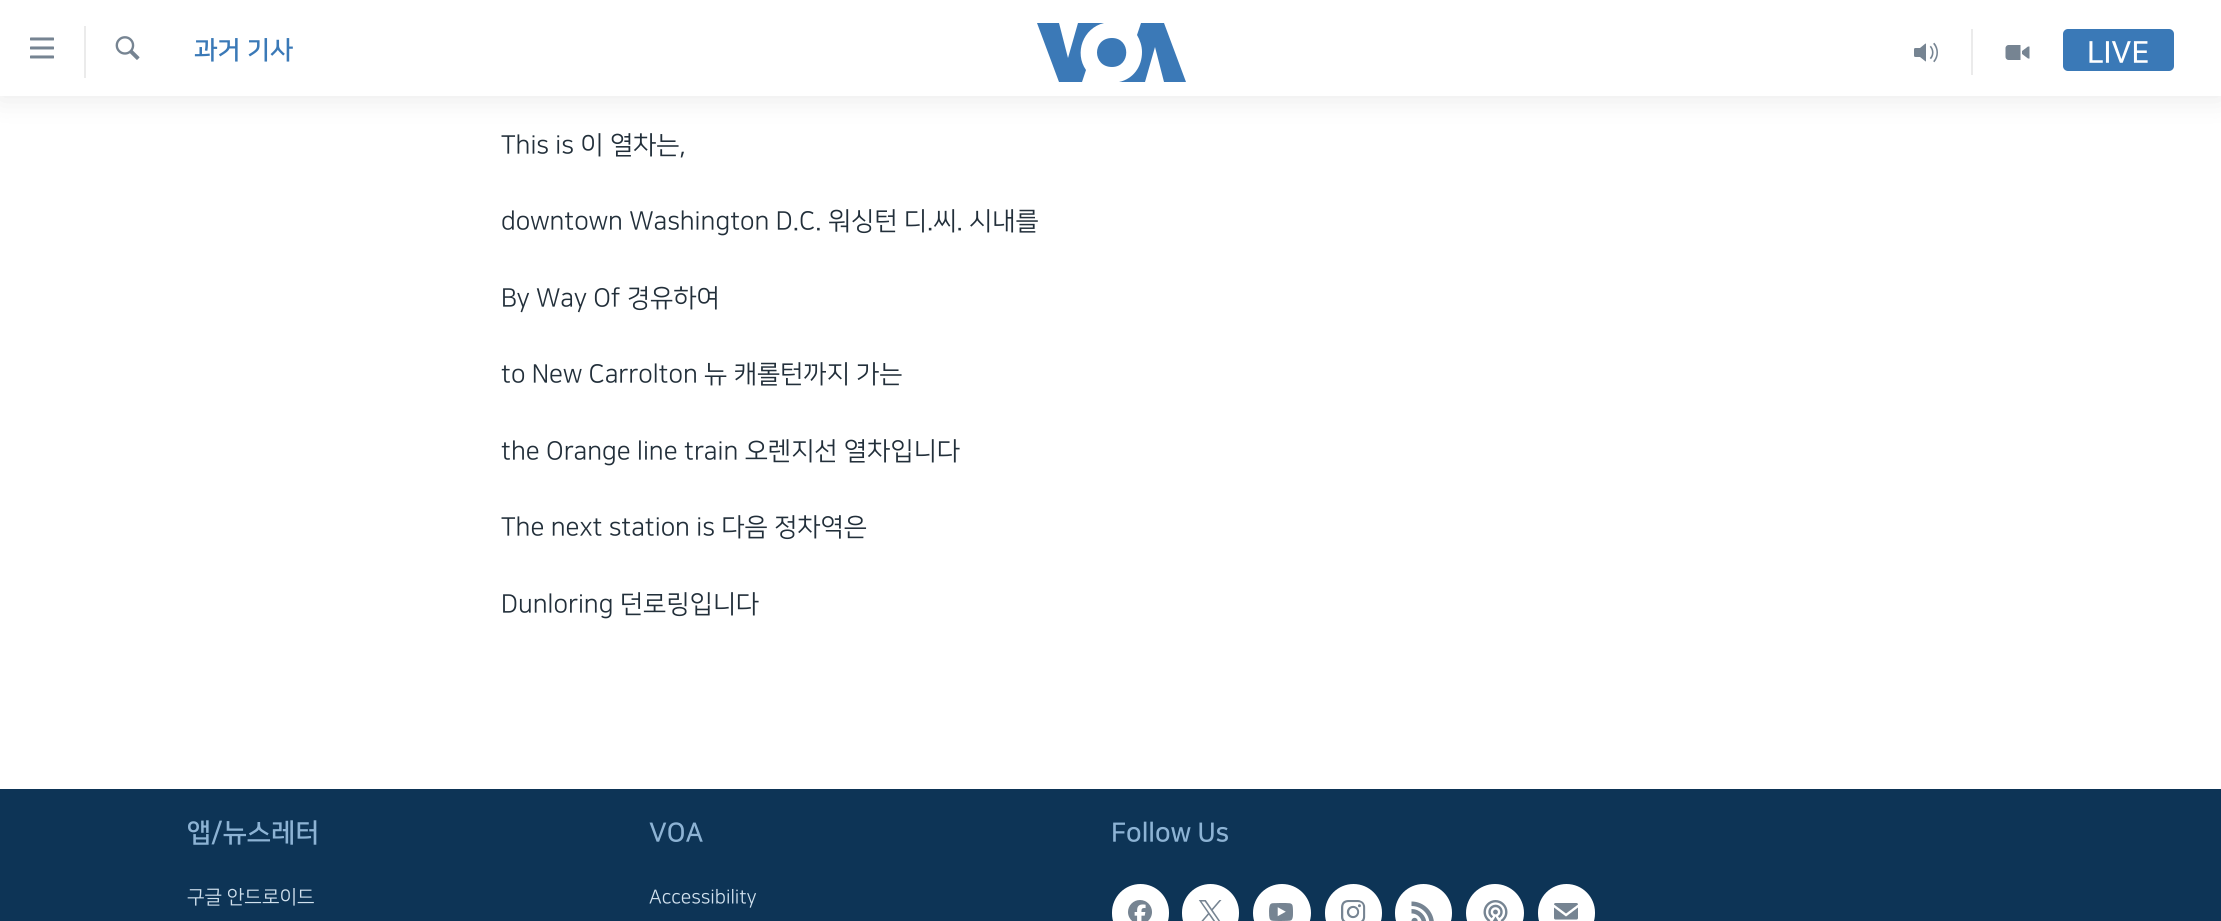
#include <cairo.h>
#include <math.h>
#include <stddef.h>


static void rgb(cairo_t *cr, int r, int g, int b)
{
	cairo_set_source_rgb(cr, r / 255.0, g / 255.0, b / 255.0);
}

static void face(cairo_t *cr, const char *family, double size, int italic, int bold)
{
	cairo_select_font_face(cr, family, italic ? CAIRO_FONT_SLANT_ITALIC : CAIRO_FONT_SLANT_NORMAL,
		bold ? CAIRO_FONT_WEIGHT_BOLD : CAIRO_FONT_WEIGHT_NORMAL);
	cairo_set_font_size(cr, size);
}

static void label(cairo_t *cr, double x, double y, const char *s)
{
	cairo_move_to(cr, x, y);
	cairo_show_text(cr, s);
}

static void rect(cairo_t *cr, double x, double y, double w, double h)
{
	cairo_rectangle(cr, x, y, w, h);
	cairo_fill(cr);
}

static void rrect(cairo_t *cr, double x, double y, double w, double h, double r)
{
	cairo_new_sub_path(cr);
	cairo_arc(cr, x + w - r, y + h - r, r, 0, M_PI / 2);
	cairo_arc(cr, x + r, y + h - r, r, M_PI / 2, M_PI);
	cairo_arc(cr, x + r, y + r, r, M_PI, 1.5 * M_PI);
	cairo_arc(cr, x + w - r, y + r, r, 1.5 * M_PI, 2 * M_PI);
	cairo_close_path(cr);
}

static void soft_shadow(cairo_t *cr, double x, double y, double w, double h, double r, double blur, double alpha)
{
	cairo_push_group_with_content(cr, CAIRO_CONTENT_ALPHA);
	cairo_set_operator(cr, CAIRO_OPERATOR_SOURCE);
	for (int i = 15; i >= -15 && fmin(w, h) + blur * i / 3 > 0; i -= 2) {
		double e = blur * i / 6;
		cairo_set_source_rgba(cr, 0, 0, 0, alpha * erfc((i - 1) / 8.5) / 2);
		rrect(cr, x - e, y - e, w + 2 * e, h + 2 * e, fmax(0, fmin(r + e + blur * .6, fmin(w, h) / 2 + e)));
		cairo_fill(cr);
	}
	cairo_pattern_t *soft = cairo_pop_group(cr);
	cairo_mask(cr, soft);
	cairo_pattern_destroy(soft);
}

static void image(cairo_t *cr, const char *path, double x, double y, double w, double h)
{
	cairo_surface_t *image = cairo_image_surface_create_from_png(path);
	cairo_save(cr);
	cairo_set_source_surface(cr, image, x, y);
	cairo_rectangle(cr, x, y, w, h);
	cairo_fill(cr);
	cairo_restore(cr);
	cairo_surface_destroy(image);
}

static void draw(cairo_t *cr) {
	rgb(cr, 255, 255, 255);
	cairo_paint(cr);
	rgb(cr, 0, 0, 0);
	soft_shadow(cr, 0, 0, 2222, 96, 0, 15, 0.1);
	rgb(cr, 255, 255, 255);
	rect(cr, 0, 0, 2221, 96);
	image(cr, "image0.png", 30, 37, 24, 22);
	rgb(cr, 235, 235, 235);
	rect(cr, 84, 26, 2, 52);
	image(cr, "image1.png", 115, 36, 25, 24);
	face(cr, "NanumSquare", 25.5, 0, 1);
	rgb(cr, 58, 121, 183);
	label(cr, 194, 58, "과거 기사");
	rgb(cr, 59, 121, 183);
	cairo_new_path(cr);
	cairo_move_to(cr, 1086, 70);
	cairo_line_to(cr, 1082, 82);
	cairo_line_to(cr, 1059, 82);
	cairo_line_to(cr, 1037, 23);
	cairo_line_to(cr, 1059, 23);
	cairo_line_to(cr, 1068, 58);
	cairo_line_to(cr, 1078, 23);
	cairo_line_to(cr, 1104, 23);
	cairo_curve_to(cr, 1083, 28, 1074, 53, 1086, 70);
	cairo_close_path(cr);
	cairo_move_to(cr, 1112, 38);
	cairo_curve_to(cr, 1092, 38, 1092, 67, 1112, 67);
	cairo_curve_to(cr, 1131, 67, 1131, 38, 1112, 38);
	cairo_close_path(cr);
	cairo_move_to(cr, 1142, 52);
	cairo_curve_to(cr, 1142, 67, 1133, 79, 1119, 82);
	cairo_line_to(cr, 1145, 82);
	cairo_line_to(cr, 1155, 47);
	cairo_line_to(cr, 1164, 82);
	cairo_line_to(cr, 1186, 82);
	cairo_line_to(cr, 1164, 23);
	cairo_line_to(cr, 1141, 23);
	cairo_line_to(cr, 1137, 35);
	cairo_curve_to(cr, 1140, 40, 1142, 46, 1142, 52);
	cairo_close_path(cr);
	cairo_fill(cr);
	rgb(cr, 235, 235, 235);
	rect(cr, 1971, 29, 2, 46);
	image(cr, "image2.png", 1914, 42, 24, 21);
	image(cr, "image3.png", 2005, 45, 25, 15);
	rgb(cr, 58, 121, 183);
	rrect(cr, 2063, 29, 111, 42, 5);
	cairo_fill(cr);
	face(cr, "NanumSquare", 30, 0, 1);
	rgb(cr, 255, 255, 255);
	label(cr, 2087, 62, "LIVE");
	face(cr, "NanumSquare", 25.5, 0, 0);
	rgb(cr, 34, 47, 58);
	label(cr, 501, 153, "This is 이 열차는,");
	label(cr, 501, 229, "downtown Washington D.C. 워싱턴 디.씨. 시내를");
	label(cr, 501, 306, "By Way Of 경유하여");
	label(cr, 501, 382, "to New Carrolton 뉴 캐롤턴까지 가는");
	label(cr, 501, 459, "the Orange line train 오렌지선 열차입니다");
	label(cr, 501, 535, "The next station is 다음 정차역은");
	label(cr, 501, 612, "Dunloring 던로링입니다");
	rgb(cr, 13, 52, 86);
	rect(cr, 0, 789, 2221, 132);
	face(cr, "NanumSquare", 26.5, 0, 1);
	rgb(cr, 141, 179, 212);
	label(cr, 187, 841, "앱/뉴스레터");
	face(cr, "NanumSquare", 19.25, 0, 0);
	rgb(cr, 209, 225, 238);
	label(cr, 187, 903, "구글 안드로이드");
	face(cr, "NanumSquare", 26.5, 0, 1);
	rgb(cr, 141, 179, 212);
	label(cr, 649, 841, "VOA");
	face(cr, "NanumSquare", 19.25, 0, 0);
	rgb(cr, 209, 225, 238);
	label(cr, 649, 903, "Accessibility");
	face(cr, "NanumSquare", 26.5, 0, 1);
	rgb(cr, 141, 179, 212);
	label(cr, 1111, 841, "Follow Us");
	rgb(cr, 255, 255, 255);
	rrect(cr, 1112, 884, 57, 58, 28.5);
	cairo_fill(cr);
	image(cr, "image4.png", 1128, 900, 24, 21);
	rrect(cr, 1182, 884, 57, 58, 28.5);
	cairo_fill(cr);
	image(cr, "image5.png", 1198, 900, 24, 21);
	cairo_arc(cr, 1282, 913, 29, 0, 2 * M_PI);
	cairo_fill(cr);
	image(cr, "image6.png", 1269, 903, 24, 18);
	rrect(cr, 1325, 884, 57, 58, 28.5);
	cairo_fill(cr);
	image(cr, "image7.png", 1341, 900, 25, 21);
	rrect(cr, 1395, 884, 57, 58, 28.5);
	cairo_fill(cr);
	image(cr, "image8.png", 1411, 901, 23, 20);
	cairo_arc(cr, 1495, 913, 29, 0, 2 * M_PI);
	cairo_fill(cr);
	image(cr, "image9.png", 1483, 900, 25, 21);
	rrect(cr, 1538, 884, 57, 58, 28.5);
	cairo_fill(cr);
	image(cr, "image10.png", 1554, 903, 24, 17);
}

int main(void) {
	cairo_surface_t *surface = cairo_image_surface_create(CAIRO_FORMAT_RGB24, 2221, 921);
	cairo_t *cr = cairo_create(surface);
	cairo_font_options_t *options = cairo_font_options_create();
	cairo_font_options_set_hint_metrics(options, CAIRO_HINT_METRICS_OFF);
	cairo_font_options_set_hint_style(options, CAIRO_HINT_STYLE_NONE);
	cairo_set_font_options(cr, options);
	cairo_set_miter_limit(cr, 4);
	draw(cr);
	cairo_surface_write_to_png(surface, "render.png");
	cairo_font_options_destroy(options);
	cairo_destroy(cr);
	cairo_surface_destroy(surface);
	return 0;
}
